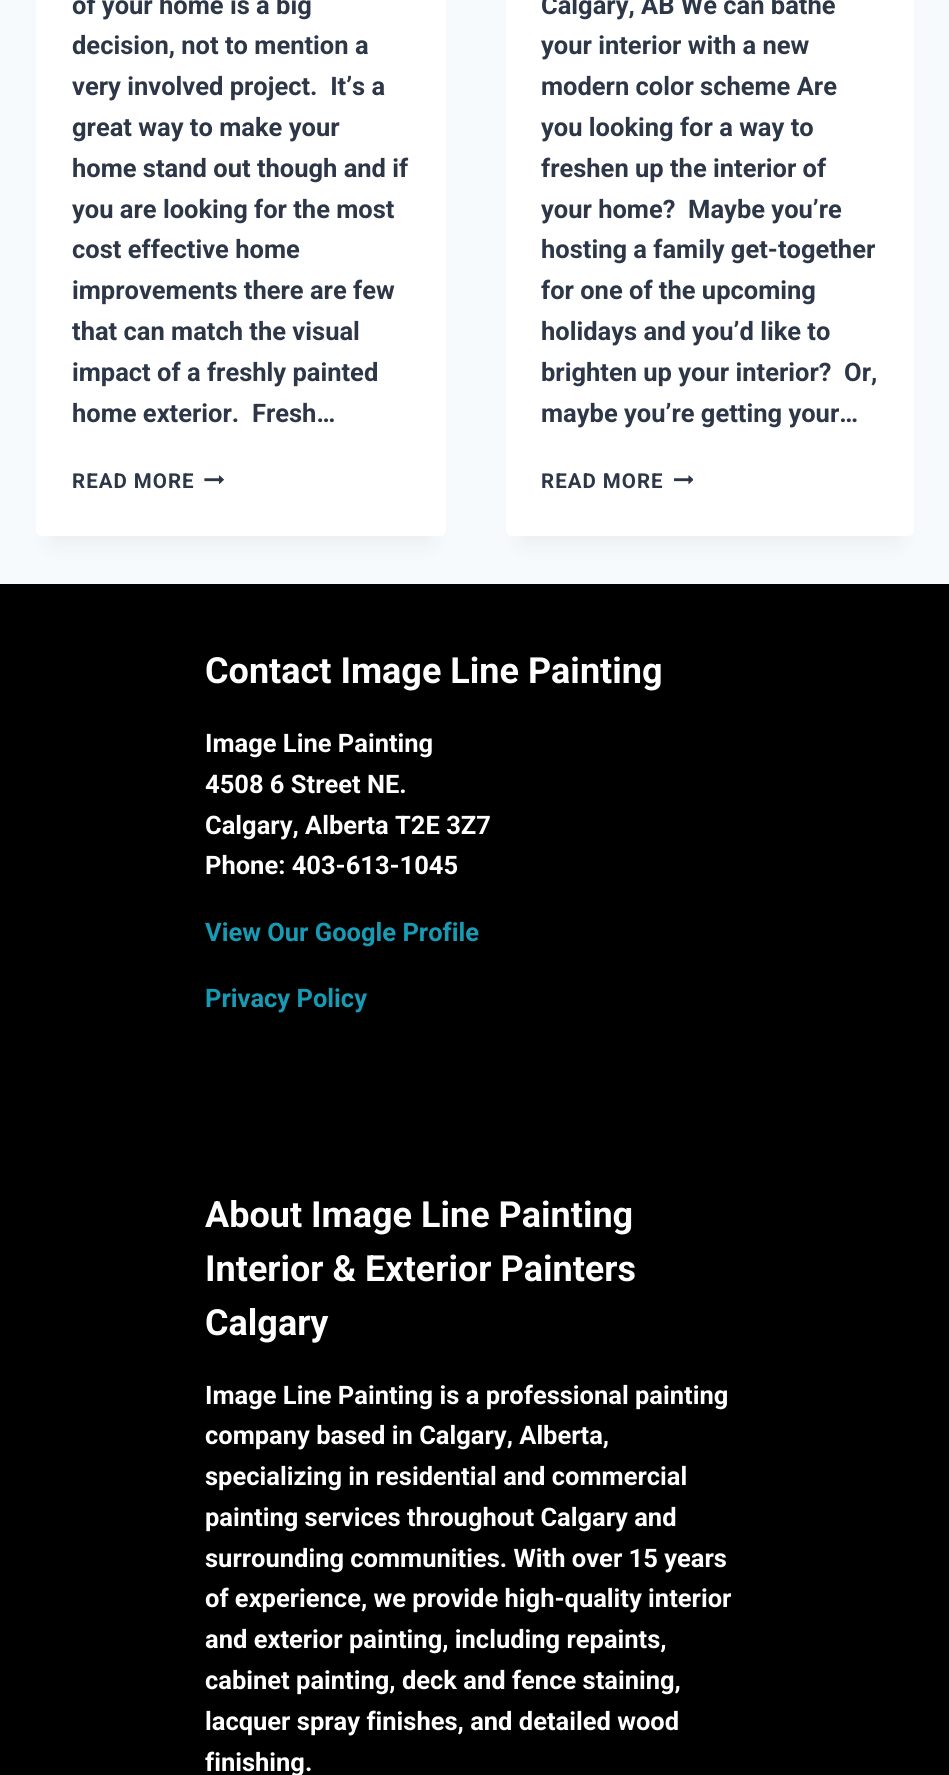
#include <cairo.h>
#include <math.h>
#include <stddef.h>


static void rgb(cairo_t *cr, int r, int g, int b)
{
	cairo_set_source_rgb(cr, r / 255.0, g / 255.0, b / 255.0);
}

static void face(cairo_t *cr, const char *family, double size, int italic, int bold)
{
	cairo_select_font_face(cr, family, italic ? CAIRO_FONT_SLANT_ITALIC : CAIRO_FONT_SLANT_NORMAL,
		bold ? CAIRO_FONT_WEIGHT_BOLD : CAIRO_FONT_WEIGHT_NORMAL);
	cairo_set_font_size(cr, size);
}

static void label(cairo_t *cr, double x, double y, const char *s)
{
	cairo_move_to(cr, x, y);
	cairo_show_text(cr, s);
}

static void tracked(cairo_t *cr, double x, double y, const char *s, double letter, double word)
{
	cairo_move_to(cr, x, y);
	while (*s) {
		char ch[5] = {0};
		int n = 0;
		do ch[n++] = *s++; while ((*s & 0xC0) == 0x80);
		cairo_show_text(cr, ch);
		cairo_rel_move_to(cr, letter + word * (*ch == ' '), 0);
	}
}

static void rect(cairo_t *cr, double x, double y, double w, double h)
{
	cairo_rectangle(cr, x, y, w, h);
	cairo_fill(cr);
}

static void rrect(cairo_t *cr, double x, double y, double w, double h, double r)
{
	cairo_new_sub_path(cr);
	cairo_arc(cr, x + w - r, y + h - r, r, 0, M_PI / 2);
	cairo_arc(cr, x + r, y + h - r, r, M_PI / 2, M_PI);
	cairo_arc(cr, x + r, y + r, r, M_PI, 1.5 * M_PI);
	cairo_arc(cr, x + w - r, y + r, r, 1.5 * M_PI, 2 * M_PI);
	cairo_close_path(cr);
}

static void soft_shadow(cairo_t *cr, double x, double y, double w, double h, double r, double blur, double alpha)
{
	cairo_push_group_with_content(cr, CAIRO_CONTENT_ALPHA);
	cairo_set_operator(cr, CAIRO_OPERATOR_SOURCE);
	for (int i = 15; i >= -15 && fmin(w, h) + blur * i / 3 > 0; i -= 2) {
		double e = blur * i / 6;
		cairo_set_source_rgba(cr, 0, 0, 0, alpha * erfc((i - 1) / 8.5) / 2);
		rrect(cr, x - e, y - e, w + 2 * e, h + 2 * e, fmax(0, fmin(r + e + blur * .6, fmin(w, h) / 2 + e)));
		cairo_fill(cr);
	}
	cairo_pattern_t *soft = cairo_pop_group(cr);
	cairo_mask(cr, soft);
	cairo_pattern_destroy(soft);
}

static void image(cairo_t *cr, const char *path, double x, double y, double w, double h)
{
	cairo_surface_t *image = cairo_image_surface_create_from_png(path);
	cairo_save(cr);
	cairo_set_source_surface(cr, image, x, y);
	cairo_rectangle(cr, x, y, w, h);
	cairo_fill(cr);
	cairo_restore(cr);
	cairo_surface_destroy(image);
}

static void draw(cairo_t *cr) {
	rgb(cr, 247, 250, 252);
	cairo_paint(cr);
	rgb(cr, 0, 0, 0);
	soft_shadow(cr, 51, -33, 380, 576, 0, 11, 0.05);
	rgb(cr, 255, 255, 255);
	rrect(cr, 36, -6, 410, 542, 6);
	cairo_fill(cr);
	face(cr, "Roboto", 25.5, 0, 1);
	rgb(cr, 45, 55, 72);
	label(cr, 72, 14, "of your home is a big");
	label(cr, 72, 54, "decision, not to mention a");
	label(cr, 72, 95, "very involved project.  It’s a");
	label(cr, 72, 136, "great way to make your");
	label(cr, 72, 177, "home stand out though and if");
	label(cr, 72, 218, "you are looking for the most");
	label(cr, 72, 258, "cost effective home");
	label(cr, 72, 299, "improvements there are few");
	label(cr, 72, 340, "that can match the visual");
	label(cr, 72, 381, "impact of a freshly painted");
	label(cr, 72, 422, "home exterior.  Fresh…");
	face(cr, "Roboto", 20.5, 0, 1);
	tracked(cr, 72, 488, "READ MORE", 1, 0);
	image(cr, "image0.png", 204, 475, 20, 9);
	rgb(cr, 0, 0, 0);
	soft_shadow(cr, 521, -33, 378, 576, 0, 11, 0.05);
	rgb(cr, 255, 255, 255);
	rrect(cr, 506, -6, 408, 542, 6);
	cairo_fill(cr);
	face(cr, "Roboto", 25.5, 0, 1);
	rgb(cr, 45, 55, 72);
	label(cr, 541, 14, "Calgary, AB We can bathe");
	label(cr, 541, 54, "your interior with a new");
	label(cr, 541, 95, "modern color scheme Are");
	label(cr, 541, 136, "you looking for a way to");
	label(cr, 541, 177, "freshen up the interior of");
	label(cr, 541, 218, "your home?  Maybe you’re");
	label(cr, 541, 258, "hosting a family get-together");
	label(cr, 541, 299, "for one of the upcoming");
	label(cr, 541, 340, "holidays and you’d like to");
	label(cr, 541, 381, "brighten up your interior?  Or,");
	label(cr, 541, 422, "maybe you’re getting your…");
	face(cr, "Roboto", 20.5, 0, 1);
	tracked(cr, 541, 488, "READ MORE", 1, 0);
	image(cr, "image1.png", 674, 475, 19, 9);
	rgb(cr, 0, 0, 0);
	rect(cr, 0, 584, 949, 1191);
	face(cr, "Roboto", 36, 0, 1);
	rgb(cr, 255, 255, 255);
	label(cr, 205, 683, "Contact Image Line Painting");
	face(cr, "Roboto", 25.5, 0, 1);
	label(cr, 205, 752, "Image Line Painting");
	label(cr, 205, 793, "4508 6 Street NE.");
	label(cr, 205, 834, "Calgary, Alberta T2E 3Z7");
	label(cr, 205, 874, "Phone: 403-613-1045");
	rgb(cr, 23, 155, 180);
	label(cr, 205, 941, "View Our Google Profile");
	label(cr, 205, 1007, "Privacy Policy");
	face(cr, "Roboto", 36, 0, 1);
	rgb(cr, 255, 255, 255);
	label(cr, 205, 1227, "About Image Line Painting");
	label(cr, 205, 1281, "Interior & Exterior Painters");
	label(cr, 205, 1335, "Calgary");
	face(cr, "Roboto", 25.5, 0, 1);
	label(cr, 205, 1404, "Image Line Painting is a professional painting");
	label(cr, 205, 1444, "company based in Calgary, Alberta,");
	label(cr, 205, 1485, "specializing in residential and commercial");
	label(cr, 205, 1526, "painting services throughout Calgary and");
	label(cr, 205, 1567, "surrounding communities. With over 15 years");
	label(cr, 205, 1607, "of experience, we provide high-quality interior");
	label(cr, 205, 1648, "and exterior painting, including repaints,");
	label(cr, 205, 1689, "cabinet painting, deck and fence staining,");
	label(cr, 205, 1730, "lacquer spray finishes, and detailed wood");
	label(cr, 205, 1771, "finishing.");
}

int main(void) {
	cairo_surface_t *surface = cairo_image_surface_create(CAIRO_FORMAT_RGB24, 949, 1775);
	cairo_t *cr = cairo_create(surface);
	cairo_font_options_t *options = cairo_font_options_create();
	cairo_font_options_set_hint_metrics(options, CAIRO_HINT_METRICS_OFF);
	cairo_font_options_set_hint_style(options, CAIRO_HINT_STYLE_NONE);
	cairo_set_font_options(cr, options);
	cairo_set_miter_limit(cr, 4);
	draw(cr);
	cairo_surface_write_to_png(surface, "render.png");
	cairo_font_options_destroy(options);
	cairo_destroy(cr);
	cairo_surface_destroy(surface);
	return 0;
}
